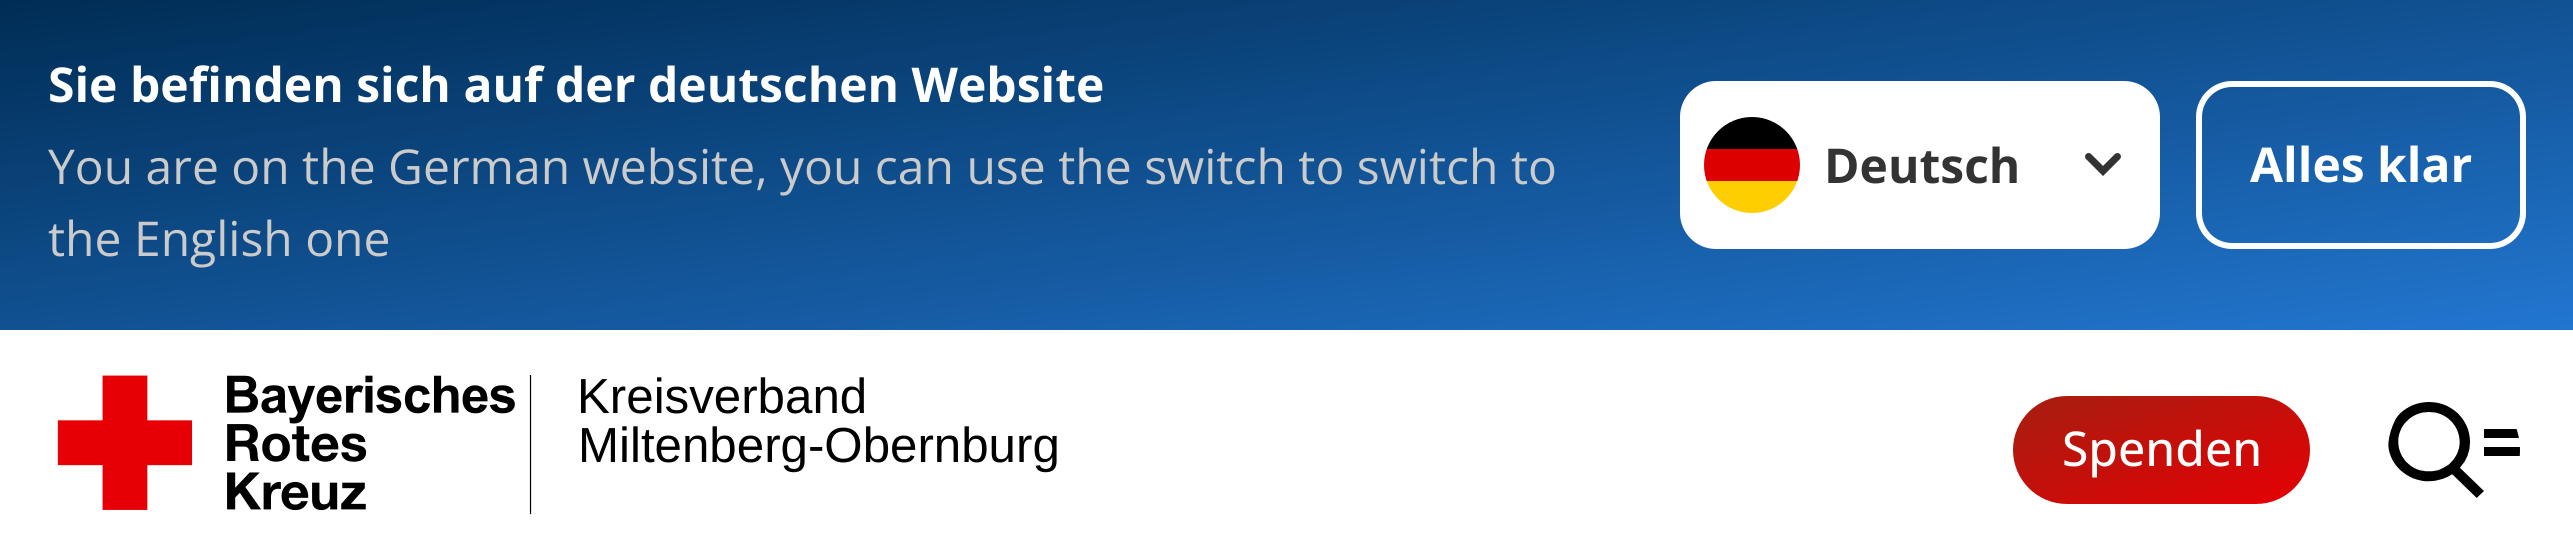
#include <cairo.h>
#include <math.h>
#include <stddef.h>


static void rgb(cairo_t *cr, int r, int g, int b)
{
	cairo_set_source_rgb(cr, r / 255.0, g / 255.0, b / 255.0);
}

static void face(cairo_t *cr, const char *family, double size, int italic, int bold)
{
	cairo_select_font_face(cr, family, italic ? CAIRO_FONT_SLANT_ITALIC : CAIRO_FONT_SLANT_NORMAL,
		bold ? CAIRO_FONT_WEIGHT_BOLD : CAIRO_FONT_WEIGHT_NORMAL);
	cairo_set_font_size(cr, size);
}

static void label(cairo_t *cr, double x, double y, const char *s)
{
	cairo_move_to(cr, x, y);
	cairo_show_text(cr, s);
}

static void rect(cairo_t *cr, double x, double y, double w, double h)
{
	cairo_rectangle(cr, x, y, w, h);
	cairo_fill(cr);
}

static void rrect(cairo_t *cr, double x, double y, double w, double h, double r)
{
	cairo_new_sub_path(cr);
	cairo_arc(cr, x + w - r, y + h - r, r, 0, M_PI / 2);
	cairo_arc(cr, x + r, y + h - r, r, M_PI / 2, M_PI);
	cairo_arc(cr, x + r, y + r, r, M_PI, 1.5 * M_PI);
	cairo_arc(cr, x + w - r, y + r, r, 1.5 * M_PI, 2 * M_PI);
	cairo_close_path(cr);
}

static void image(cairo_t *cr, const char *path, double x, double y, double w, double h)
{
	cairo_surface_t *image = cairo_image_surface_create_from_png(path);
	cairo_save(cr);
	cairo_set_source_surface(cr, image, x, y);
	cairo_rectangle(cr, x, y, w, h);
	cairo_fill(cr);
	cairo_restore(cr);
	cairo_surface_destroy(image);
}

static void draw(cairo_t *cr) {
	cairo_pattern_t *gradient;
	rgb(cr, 255, 255, 255);
	cairo_paint(cr);
	gradient = cairo_pattern_create_linear(1245, -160, 1329, 490);
	cairo_pattern_add_color_stop_rgba(gradient, 0, 0, 0.176, 0.333, 1);
	cairo_pattern_add_color_stop_rgba(gradient, 1, 0.133, 0.463, 0.816, 1);
	cairo_set_source(cr, gradient);
	cairo_pattern_destroy(gradient);
	rect(cr, 0, 0, 2573, 330);
	face(cr, "Open Sans", 48, 0, 1);
	rgb(cr, 255, 255, 255);
	label(cr, 48, 102, "Sie befinden sich auf der deutschen Website");
	face(cr, "Open Sans", 48, 0, 0);
	rgb(cr, 203, 203, 203);
	label(cr, 48, 184, "You are on the German website, you can use the switch to switch to");
	label(cr, 48, 256, "the English one");
	rgb(cr, 255, 255, 255);
	rrect(cr, 1680, 81, 480, 168, 36);
	cairo_fill(cr);
	cairo_save(cr);
	rrect(cr, 1704, 117, 96, 96, 48);
	cairo_clip(cr);
	rgb(cr, 255, 206, 0);
	rect(cr, 1706, 181, 92, 32);
	rgb(cr, 0, 0, 0);
	rect(cr, 1706, 117, 92, 32);
	rgb(cr, 221, 0, 0);
	rect(cr, 1704, 149, 96, 32);
	cairo_restore(cr);
	image(cr, "image0.png", 2085, 153, 36, 23);
	face(cr, "Open Sans", 48, 0, 1);
	rgb(cr, 51, 51, 51);
	label(cr, 1824, 183, "Deutsch");
	rrect(cr, 2199, 84, 324, 162, 33);
	rgb(cr, 255, 255, 255);
	cairo_set_line_width(cr, 6);
	cairo_stroke(cr);
	label(cr, 2250, 182, "Alles klar");
	image(cr, "image1.png", 57, 375, 475, 140);
	face(cr, "Liberation Sans", 49.25, 0, 0);
	rgb(cr, 0, 0, 0);
	label(cr, 577, 413, "Kreisverband");
	label(cr, 578, 462, "Miltenberg-Obernburg");
	gradient = cairo_pattern_create_linear(2127, 355, 2196, 545);
	cairo_pattern_add_color_stop_rgba(gradient, 0, 0.647, 0.118, 0.059, 1);
	cairo_pattern_add_color_stop_rgba(gradient, 1, 0.902, 0, 0.02, 1);
	cairo_set_source(cr, gradient);
	cairo_pattern_destroy(gradient);
	rrect(cr, 2013, 396, 297, 108, 54);
	cairo_fill(cr);
	face(cr, "Open Sans Medium", 48, 0, 0);
	rgb(cr, 255, 255, 255);
	label(cr, 2062, 466, "Spenden");
	image(cr, "image2.png", 2388, 402, 96, 96);
	cairo_save(cr);
	rrect(cr, 2388, 384, 132, 132, 66);
	cairo_clip(cr);
	rgb(cr, 0, 0, 0);
	rect(cr, 2484, 429, 35, 9);
	rect(cr, 2484, 447, 36, 9);
	cairo_restore(cr);
}

int main(void) {
	cairo_surface_t *surface = cairo_image_surface_create(CAIRO_FORMAT_RGB24, 2573, 560);
	cairo_t *cr = cairo_create(surface);
	cairo_font_options_t *options = cairo_font_options_create();
	cairo_font_options_set_hint_metrics(options, CAIRO_HINT_METRICS_OFF);
	cairo_font_options_set_hint_style(options, CAIRO_HINT_STYLE_NONE);
	cairo_set_font_options(cr, options);
	cairo_set_miter_limit(cr, 4);
	draw(cr);
	cairo_surface_write_to_png(surface, "render.png");
	cairo_font_options_destroy(options);
	cairo_destroy(cr);
	cairo_surface_destroy(surface);
	return 0;
}
